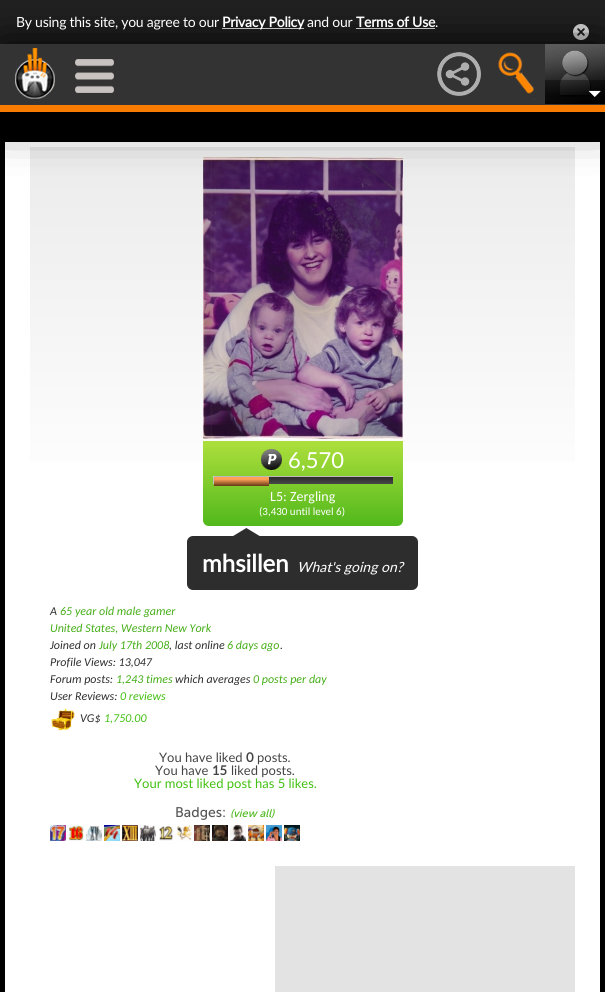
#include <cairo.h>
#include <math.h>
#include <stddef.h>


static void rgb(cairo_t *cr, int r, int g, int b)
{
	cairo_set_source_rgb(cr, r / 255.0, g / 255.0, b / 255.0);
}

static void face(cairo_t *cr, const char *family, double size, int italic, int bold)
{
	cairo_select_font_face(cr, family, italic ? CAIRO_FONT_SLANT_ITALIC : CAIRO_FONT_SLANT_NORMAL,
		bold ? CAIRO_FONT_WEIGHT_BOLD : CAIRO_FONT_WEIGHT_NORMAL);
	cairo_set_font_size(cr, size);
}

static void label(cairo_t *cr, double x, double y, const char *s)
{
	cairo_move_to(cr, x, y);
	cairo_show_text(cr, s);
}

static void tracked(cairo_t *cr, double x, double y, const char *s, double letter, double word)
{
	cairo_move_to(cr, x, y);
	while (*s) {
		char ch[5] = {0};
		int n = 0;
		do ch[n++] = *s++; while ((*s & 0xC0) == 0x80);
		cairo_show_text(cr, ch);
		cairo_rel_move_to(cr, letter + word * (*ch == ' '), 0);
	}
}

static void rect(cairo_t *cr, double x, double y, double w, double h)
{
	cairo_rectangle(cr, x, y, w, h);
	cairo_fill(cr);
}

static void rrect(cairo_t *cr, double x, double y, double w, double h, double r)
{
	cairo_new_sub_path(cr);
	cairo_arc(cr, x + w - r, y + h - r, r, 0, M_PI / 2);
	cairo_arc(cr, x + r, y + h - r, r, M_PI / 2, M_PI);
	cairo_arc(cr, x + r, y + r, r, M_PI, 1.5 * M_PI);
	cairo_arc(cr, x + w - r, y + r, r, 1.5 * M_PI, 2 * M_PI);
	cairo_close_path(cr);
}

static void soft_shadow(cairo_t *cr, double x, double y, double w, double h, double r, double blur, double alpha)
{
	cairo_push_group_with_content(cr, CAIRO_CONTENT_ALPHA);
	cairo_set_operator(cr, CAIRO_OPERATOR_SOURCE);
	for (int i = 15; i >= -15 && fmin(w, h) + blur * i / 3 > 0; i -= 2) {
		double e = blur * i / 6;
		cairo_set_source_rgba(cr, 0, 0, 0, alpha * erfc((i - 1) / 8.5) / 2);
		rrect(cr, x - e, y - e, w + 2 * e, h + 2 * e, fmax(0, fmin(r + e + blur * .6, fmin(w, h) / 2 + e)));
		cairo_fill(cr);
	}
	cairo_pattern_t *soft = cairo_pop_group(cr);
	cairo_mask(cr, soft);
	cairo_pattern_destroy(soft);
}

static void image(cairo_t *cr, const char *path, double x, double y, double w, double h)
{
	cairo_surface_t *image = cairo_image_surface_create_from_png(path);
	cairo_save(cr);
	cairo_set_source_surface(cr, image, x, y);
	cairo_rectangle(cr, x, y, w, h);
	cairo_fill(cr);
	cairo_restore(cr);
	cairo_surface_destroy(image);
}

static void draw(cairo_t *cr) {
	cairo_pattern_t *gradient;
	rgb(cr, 0, 0, 0);
	cairo_paint(cr);
	rgb(cr, 34, 34, 34);
	rect(cr, 0, 0, 605, 44);
	rgb(cr, 255, 255, 255);
	rect(cr, 222, 28, 82, 1);
	rect(cr, 356, 28, 79, 1);
	image(cr, "image6.png", 573, 24, 16, 16);
	rect(cr, 5, 142, 595, 850);
	gradient = cairo_pattern_create_linear(30, 147, 30, 866);
	cairo_pattern_add_color_stop_rgba(gradient, 0, 0.922, 0.922, 0.922, 1);
	cairo_pattern_add_color_stop_rgba(gradient, 0.5, 1, 1, 1, 1);
	cairo_pattern_add_color_stop_rgba(gradient, 1, 1, 1, 1, 1);
	cairo_set_source(cr, gradient);
	cairo_pattern_destroy(gradient);
	rect(cr, 30, 147, 545, 315);
	image(cr, "image7.png", 203, 157, 200, 282);
	rgb(cr, 0, 0, 0);
	soft_shadow(cr, 0, 45, 605, 68, 0, 25, 1);
	rgb(cr, 51, 51, 51);
	rect(cr, 0, 44, 605, 61);
	image(cr, "image0.png", 15, 48, 40, 51);
	image(cr, "image1.png", 75, 59, 39, 34);
	image(cr, "image2.png", 437, 52, 44, 44);
	image(cr, "image3.png", 498, 52, 38, 48);
	image(cr, "image4.png", 545, 44, 60, 60);
	image(cr, "image5.png", 545, 80, 60, 18);
	rgb(cr, 249, 123, 0);
	rect(cr, 0, 105, 605, 7);
	face(cr, "Lato", 14, 0, 0);
	rgb(cr, 255, 255, 255);
	tracked(cr, 16, 27, "By using this site, you agree to our", -0.25, 0);
	face(cr, "Lato", 14, 0, 1);
	tracked(cr, 222, 27, "Privacy Policy", -0.25, 0);
	face(cr, "Lato", 14, 0, 0);
	tracked(cr, 307, 27, "and our", -0.25, 0);
	face(cr, "Lato", 14, 0, 1);
	tracked(cr, 356, 27, "Terms of Use", -0.25, 0);
	face(cr, "Lato", 14, 0, 0);
	tracked(cr, 435, 27, ".", -0.25, 0);
	gradient = cairo_pattern_create_linear(203, 441, 203, 526);
	cairo_pattern_add_color_stop_rgba(gradient, 0, 0.682, 0.875, 0.235, 1);
	cairo_pattern_add_color_stop_rgba(gradient, 1, 0.318, 0.722, 0.11, 1);
	cairo_set_source(cr, gradient);
	cairo_pattern_destroy(gradient);
	cairo_new_path(cr);
	cairo_move_to(cr, 203, 441);
	cairo_line_to(cr, 403, 441);
	cairo_line_to(cr, 403, 520);
	cairo_curve_to(cr, 403, 523.5, 400.5, 526, 397, 526);
	cairo_line_to(cr, 209, 526);
	cairo_curve_to(cr, 205.5, 526, 203, 523.5, 203, 520);
	cairo_close_path(cr);
	cairo_fill(cr);
	image(cr, "image8.png", 261, 449, 21, 21);
	face(cr, "Lato", 22, 0, 0);
	rgb(cr, 255, 255, 255);
	label(cr, 288, 468, "6,570");
	image(cr, "image9.png", 213, 476, 180, 8);
	gradient = cairo_pattern_create_linear(214, 477, 214, 486);
	cairo_pattern_add_color_stop_rgba(gradient, 0, 1, 0.635, 0.341, 1);
	cairo_pattern_add_color_stop_rgba(gradient, 0.25, 1, 0.635, 0.341, 1);
	cairo_pattern_add_color_stop_rgba(gradient, 1, 0.384, 0.216, 0.078, 1);
	cairo_set_source(cr, gradient);
	cairo_pattern_destroy(gradient);
	rect(cr, 214, 477, 55, 9);
	face(cr, "Carlito", 14, 0, 0);
	rgb(cr, 255, 255, 255);
	label(cr, 270, 501, "L5: Zergling");
	face(cr, "Carlito", 11, 0, 0);
	label(cr, 259, 515, "(3,430 until level 6)");
	rgb(cr, 45, 45, 45);
	rrect(cr, 187, 536, 231, 54, 6);
	cairo_fill(cr);
	image(cr, "image10.png", 233, 528, 27, 8);
	face(cr, "Lato", 24, 0, 1);
	rgb(cr, 255, 255, 255);
	label(cr, 202, 572, "mhsillen");
	face(cr, "Lato", 14, 1, 0);
	label(cr, 297, 572, "What's going on?");
	face(cr, "Carlito", 12, 1, 0);
	rgb(cr, 47, 47, 47);
	label(cr, 50, 615, "A");
	rgb(cr, 70, 174, 24);
	label(cr, 60, 615, "65 year old male gamer");
	label(cr, 50, 632, "United States, Western New York");
	rgb(cr, 47, 47, 47);
	label(cr, 50, 649, "Joined on");
	rgb(cr, 70, 174, 24);
	label(cr, 99, 649, "July 17th 2008");
	rgb(cr, 47, 47, 47);
	label(cr, 169, 649, ", last online");
	rgb(cr, 70, 174, 24);
	label(cr, 227, 649, "6 days ago");
	rgb(cr, 47, 47, 47);
	label(cr, 280, 649, ".");
	label(cr, 50, 666, "Profile Views: 13,047");
	label(cr, 50, 683, "Forum posts:");
	rgb(cr, 70, 174, 24);
	label(cr, 116, 683, "1,243 times");
	rgb(cr, 47, 47, 47);
	label(cr, 175, 683, "which averages");
	rgb(cr, 70, 174, 24);
	label(cr, 253, 683, "0 posts per day");
	rgb(cr, 47, 47, 47);
	label(cr, 50, 700, "User Reviews:");
	rgb(cr, 66, 192, 17);
	label(cr, 120, 700, "0 reviews");
	image(cr, "image11.png", 51, 708, 24, 23);
	rgb(cr, 47, 47, 47);
	label(cr, 80, 722, "VG$");
	rgb(cr, 66, 192, 17);
	label(cr, 104, 722, "1,750.00");
	face(cr, "Lato", 13, 0, 0);
	rgb(cr, 68, 68, 68);
	label(cr, 159, 762, "You have liked");
	face(cr, "Lato", 13, 0, 1);
	label(cr, 246, 762, "0");
	face(cr, "Lato", 13, 0, 0);
	label(cr, 257, 762, "posts.");
	label(cr, 155, 775, "You have");
	face(cr, "Lato", 13, 0, 1);
	label(cr, 212, 775, "15");
	face(cr, "Lato", 13, 0, 0);
	label(cr, 231, 775, "liked posts.");
	rgb(cr, 66, 192, 17);
	label(cr, 134, 788, "Your most liked post has 5 likes.");
	face(cr, "Museo Sans", 14, 0, 0);
	rgb(cr, 86, 86, 86);
	label(cr, 175, 817, "Badges:");
	face(cr, "Museo Sans", 11, 1, 0);
	rgb(cr, 77, 183, 26);
	label(cr, 230, 817, "(view all)");
	image(cr, "image12.png", 50, 825, 16, 16);
	image(cr, "image13.png", 68, 825, 16, 16);
	image(cr, "image14.png", 86, 826, 16, 15);
	image(cr, "image15.png", 104, 825, 16, 16);
	image(cr, "image16.png", 122, 825, 16, 16);
	image(cr, "image17.png", 140, 825, 16, 16);
	image(cr, "image18.png", 159, 826, 15, 15);
	image(cr, "image19.png", 176, 825, 16, 16);
	image(cr, "image20.png", 194, 825, 16, 16);
	image(cr, "image21.png", 212, 825, 16, 16);
	image(cr, "image22.png", 230, 825, 16, 16);
	image(cr, "image23.png", 248, 825, 16, 16);
	image(cr, "image24.png", 266, 825, 16, 16);
	image(cr, "image25.png", 284, 825, 16, 16);
	rgb(cr, 227, 227, 227);
	rect(cr, 275, 866, 300, 126);
}

int main(void) {
	cairo_surface_t *surface = cairo_image_surface_create(CAIRO_FORMAT_RGB24, 605, 992);
	cairo_t *cr = cairo_create(surface);
	cairo_font_options_t *options = cairo_font_options_create();
	cairo_font_options_set_hint_metrics(options, CAIRO_HINT_METRICS_OFF);
	cairo_font_options_set_hint_style(options, CAIRO_HINT_STYLE_NONE);
	cairo_set_font_options(cr, options);
	cairo_set_miter_limit(cr, 4);
	draw(cr);
	cairo_surface_write_to_png(surface, "render.png");
	cairo_font_options_destroy(options);
	cairo_destroy(cr);
	cairo_surface_destroy(surface);
	return 0;
}
